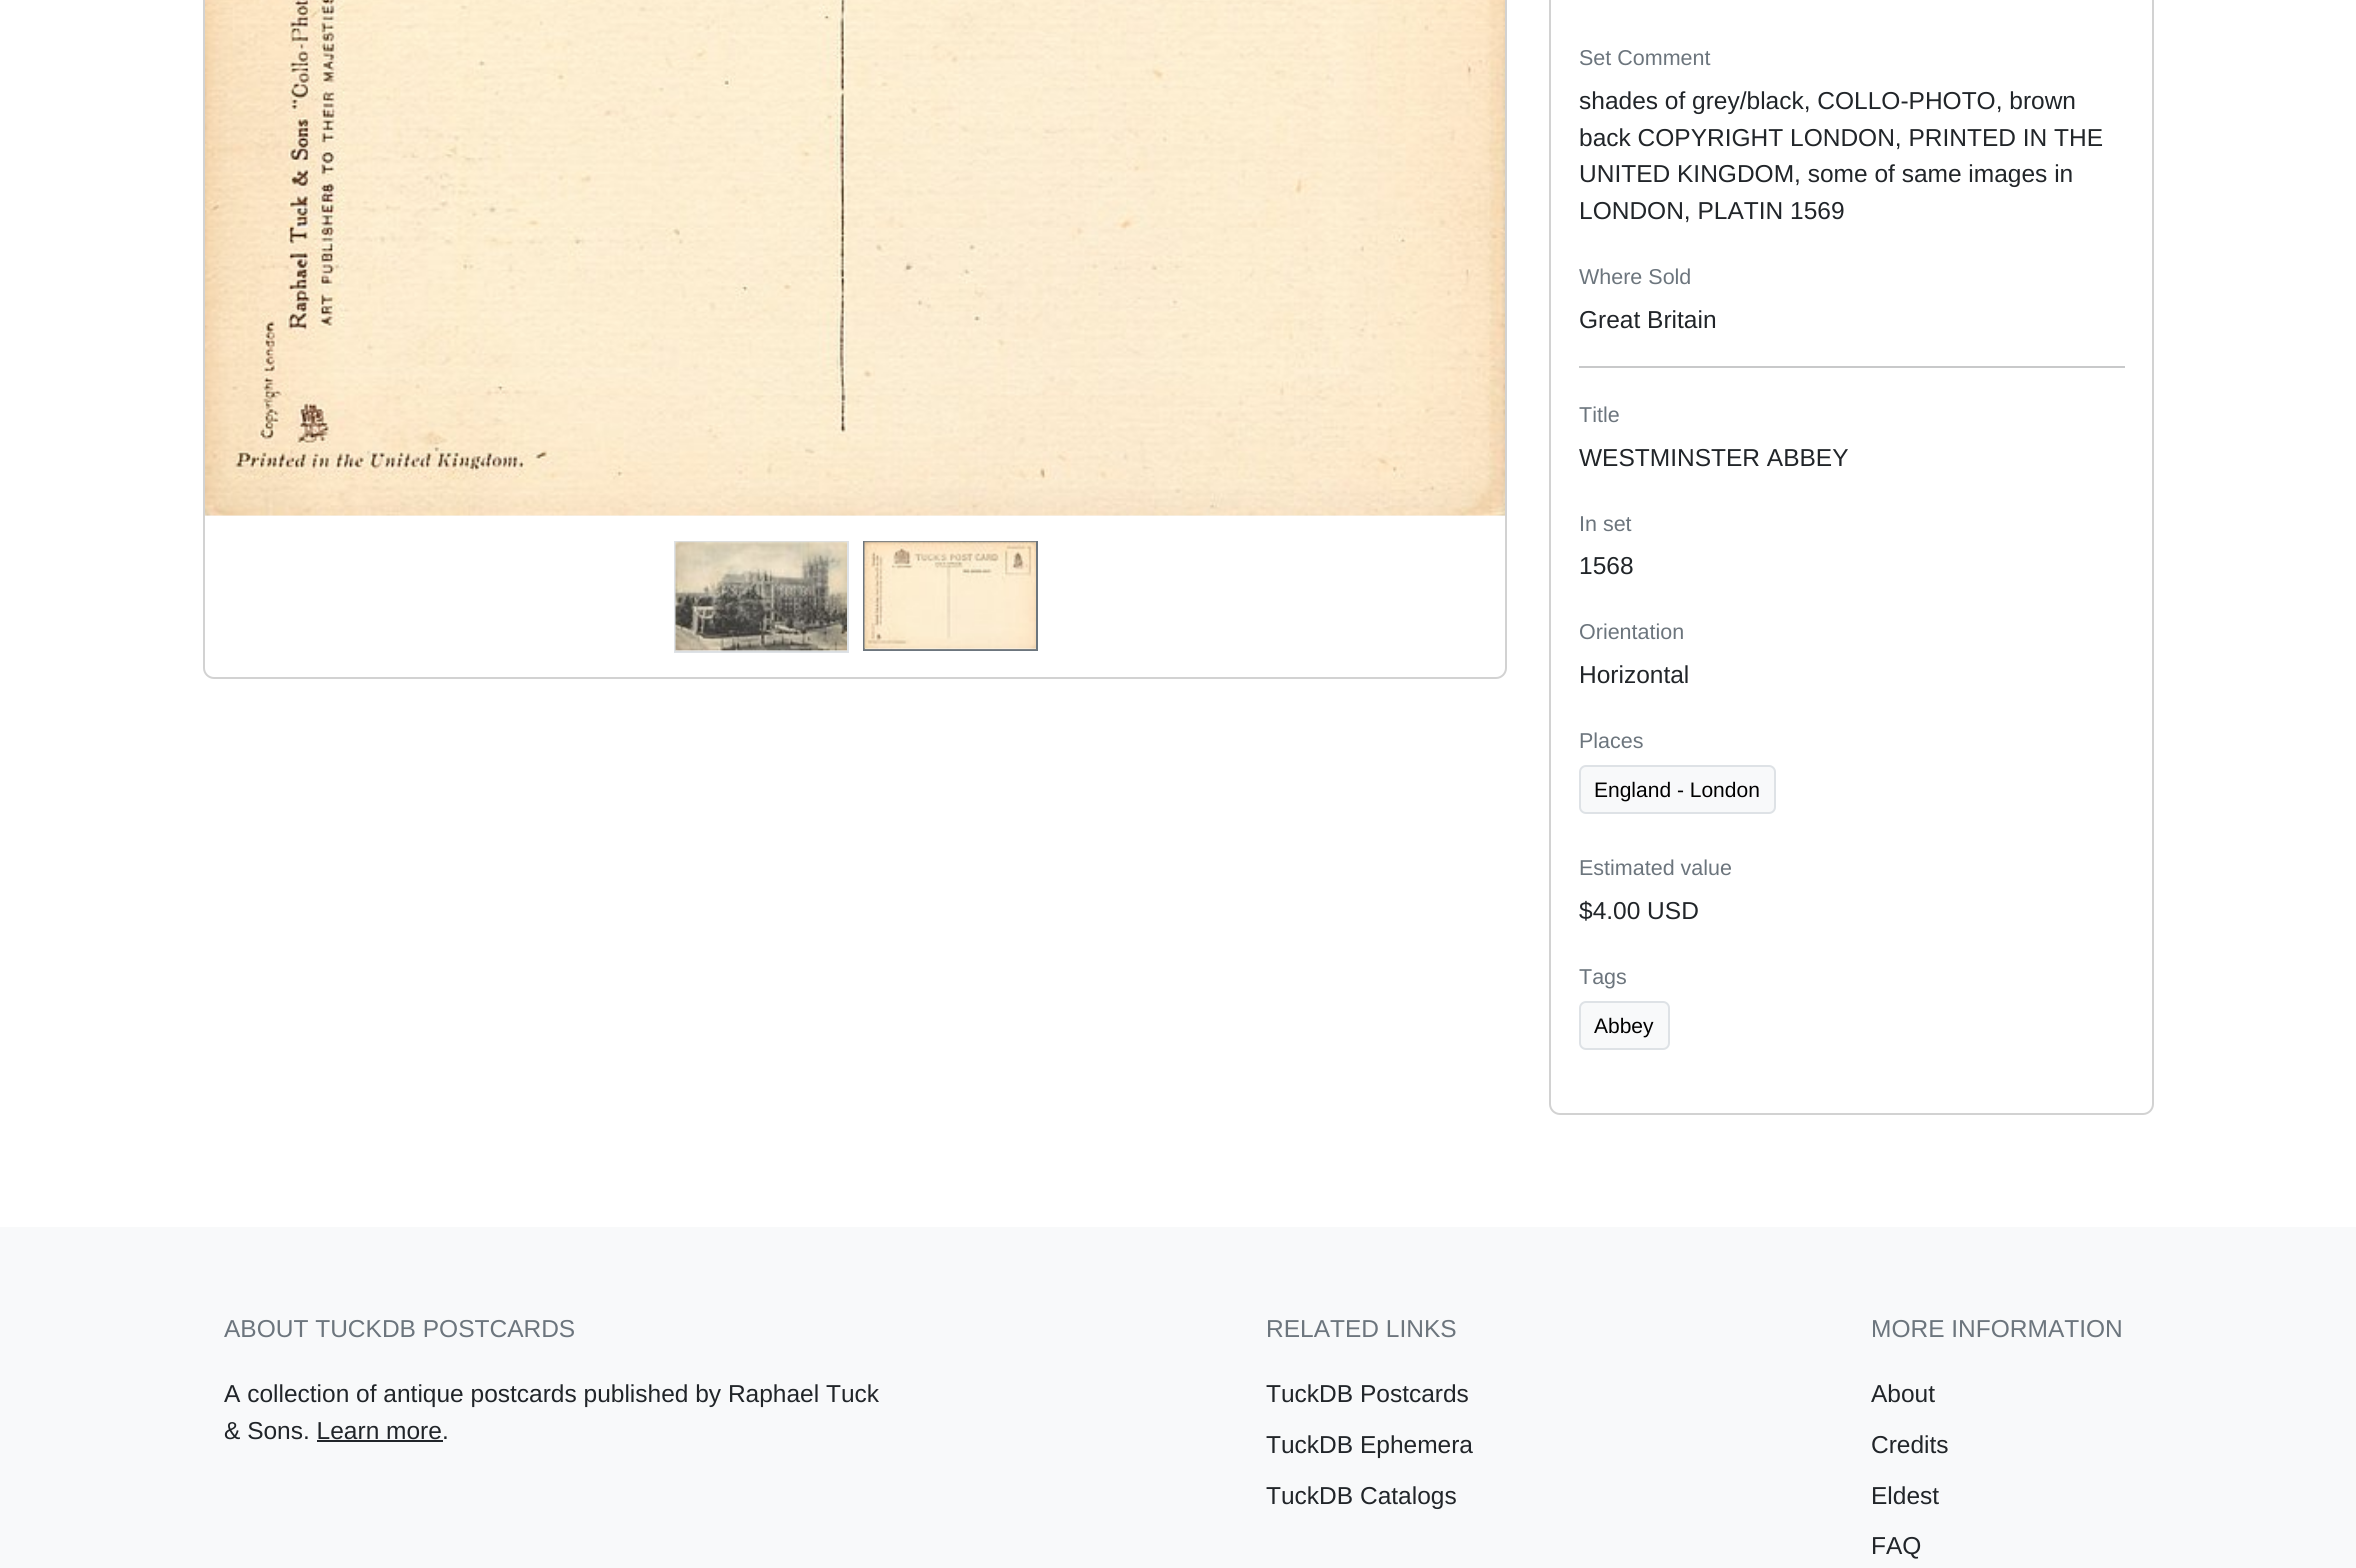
#include <cairo.h>
#include <math.h>
#include <stddef.h>


static void rgb(cairo_t *cr, int r, int g, int b)
{
	cairo_set_source_rgb(cr, r / 255.0, g / 255.0, b / 255.0);
}

static void face(cairo_t *cr, const char *family, double size, int italic, int bold)
{
	cairo_select_font_face(cr, family, italic ? CAIRO_FONT_SLANT_ITALIC : CAIRO_FONT_SLANT_NORMAL,
		bold ? CAIRO_FONT_WEIGHT_BOLD : CAIRO_FONT_WEIGHT_NORMAL);
	cairo_set_font_size(cr, size);
}

static void label(cairo_t *cr, double x, double y, const char *s)
{
	cairo_move_to(cr, x, y);
	cairo_show_text(cr, s);
}

static void rect(cairo_t *cr, double x, double y, double w, double h)
{
	cairo_rectangle(cr, x, y, w, h);
	cairo_fill(cr);
}

static void rrect(cairo_t *cr, double x, double y, double w, double h, double r)
{
	cairo_new_sub_path(cr);
	cairo_arc(cr, x + w - r, y + h - r, r, 0, M_PI / 2);
	cairo_arc(cr, x + r, y + h - r, r, M_PI / 2, M_PI);
	cairo_arc(cr, x + r, y + r, r, M_PI, 1.5 * M_PI);
	cairo_arc(cr, x + w - r, y + r, r, 1.5 * M_PI, 2 * M_PI);
	cairo_close_path(cr);
}

static void image(cairo_t *cr, const char *path, double x, double y, double w, double h)
{
	cairo_surface_t *image = cairo_image_surface_create_from_png(path);
	cairo_save(cr);
	cairo_set_source_surface(cr, image, x, y);
	cairo_rectangle(cr, x, y, w, h);
	cairo_fill(cr);
	cairo_restore(cr);
	cairo_surface_destroy(image);
}

static void draw(cairo_t *cr) {
	rgb(cr, 255, 255, 255);
	cairo_paint(cr);
	cairo_new_path(cr);
	cairo_move_to(cr, 204, -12);
	cairo_line_to(cr, 1506, -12);
	cairo_line_to(cr, 1506, 668);
	cairo_curve_to(cr, 1506, 673.5, 1501.5, 678, 1496, 678);
	cairo_line_to(cr, 214, 678);
	cairo_curve_to(cr, 208.5, 678, 204, 673.5, 204, 668);
	cairo_close_path(cr);
	rgb(cr, 210, 210, 210);
	cairo_stroke(cr);
	rgb(cr, 248, 249, 250);
	rect(cr, 205, 515, 1300, 1);
	image(cr, "image0.png", 205, 0, 1300, 516);
	rect(cr, 676, 650, 171, 1);
	cairo_rectangle(cr, 675, 542, 173, 110);
	rgb(cr, 222, 226, 230);
	cairo_stroke(cr);
	image(cr, "image1.png", 675, 541, 172, 111);
	rgb(cr, 248, 249, 250);
	rect(cr, 865, 648, 171, 1);
	cairo_rectangle(cr, 864, 542, 173, 108);
	rgb(cr, 108, 117, 125);
	cairo_stroke(cr);
	image(cr, "image2.png", 864, 541, 172, 109);
	rrect(cr, 1550, -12, 603, 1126, 10);
	rgb(cr, 210, 210, 210);
	cairo_stroke(cr);
	face(cr, "Liberation Sans", 21.5, 0, 0);
	rgb(cr, 108, 117, 125);
	label(cr, 1579, 65, "Set Comment");
	face(cr, "Liberation Sans", 24.5, 0, 0);
	rgb(cr, 33, 37, 41);
	label(cr, 1579, 109, "shades of grey/black, COLLO-PHOTO, brown");
	label(cr, 1579, 146, "back COPYRIGHT LONDON, PRINTED IN THE");
	label(cr, 1579, 182, "UNITED KINGDOM, some of same images in");
	label(cr, 1579, 219, "LONDON, PLATIN 1569");
	face(cr, "Liberation Sans", 21.5, 0, 0);
	rgb(cr, 108, 117, 125);
	label(cr, 1579, 284, "Where Sold");
	face(cr, "Liberation Sans", 24.5, 0, 0);
	rgb(cr, 33, 37, 41);
	label(cr, 1579, 328, "Great Britain");
	rgb(cr, 200, 201, 202);
	rect(cr, 1579, 366, 546, 2);
	face(cr, "Liberation Sans", 21.5, 0, 0);
	rgb(cr, 108, 117, 125);
	label(cr, 1579, 422, "Title");
	face(cr, "Liberation Sans", 24.5, 0, 0);
	rgb(cr, 33, 37, 41);
	label(cr, 1579, 466, "WESTMINSTER ABBEY");
	face(cr, "Liberation Sans", 21.5, 0, 0);
	rgb(cr, 108, 117, 125);
	label(cr, 1579, 531, "In set");
	face(cr, "Liberation Sans", 24.5, 0, 0);
	rgb(cr, 33, 37, 41);
	label(cr, 1579, 574, "1568");
	face(cr, "Liberation Sans", 21.5, 0, 0);
	rgb(cr, 108, 117, 125);
	label(cr, 1579, 639, "Orientation");
	face(cr, "Liberation Sans", 24.5, 0, 0);
	rgb(cr, 33, 37, 41);
	label(cr, 1579, 683, "Horizontal");
	face(cr, "Liberation Sans", 21.5, 0, 0);
	rgb(cr, 108, 117, 125);
	label(cr, 1579, 748, "Places");
	rgb(cr, 248, 249, 250);
	rrect(cr, 1580, 766, 195, 47, 6);
	cairo_fill_preserve(cr);
	rgb(cr, 222, 226, 230);
	cairo_stroke(cr);
	face(cr, "Liberation Sans", 21, 0, 0);
	rgb(cr, 0, 0, 0);
	label(cr, 1594, 797, "England - London");
	face(cr, "Liberation Sans", 21.5, 0, 0);
	rgb(cr, 108, 117, 125);
	label(cr, 1579, 875, "Estimated value");
	face(cr, "Liberation Sans", 24.5, 0, 0);
	rgb(cr, 33, 37, 41);
	label(cr, 1579, 919, "$4.00 USD");
	face(cr, "Liberation Sans", 21.5, 0, 0);
	rgb(cr, 108, 117, 125);
	label(cr, 1579, 984, "Tags");
	rgb(cr, 248, 249, 250);
	rrect(cr, 1580, 1002, 89, 47, 6);
	cairo_fill_preserve(cr);
	rgb(cr, 222, 226, 230);
	cairo_stroke(cr);
	face(cr, "Liberation Sans", 21, 0, 0);
	rgb(cr, 0, 0, 0);
	label(cr, 1594, 1033, "Abbey");
	rgb(cr, 248, 249, 250);
	rect(cr, 0, 1227, 2356, 341);
	face(cr, "Liberation Sans", 24.5, 0, 0);
	rgb(cr, 108, 117, 125);
	label(cr, 224, 1337, "ABOUT TUCKDB POSTCARDS");
	rgb(cr, 33, 37, 41);
	label(cr, 224, 1402, "A collection of antique postcards published by Raphael Tuck");
	label(cr, 224, 1439, "& Sons. Learn more.");
	rect(cr, 317, 1440, 126, 2);
	rgb(cr, 108, 117, 125);
	label(cr, 1266, 1337, "RELATED LINKS");
	rgb(cr, 33, 37, 41);
	label(cr, 1266, 1402, "TuckDB Postcards");
	label(cr, 1266, 1453, "TuckDB Ephemera");
	label(cr, 1266, 1504, "TuckDB Catalogs");
	rgb(cr, 108, 117, 125);
	label(cr, 1871, 1337, "MORE INFORMATION");
	rgb(cr, 33, 37, 41);
	label(cr, 1871, 1402, "About");
	label(cr, 1871, 1453, "Credits");
	label(cr, 1871, 1504, "Eldest");
	label(cr, 1871, 1554, "FAQ");
}

int main(void) {
	cairo_surface_t *surface = cairo_image_surface_create(CAIRO_FORMAT_RGB24, 2356, 1568);
	cairo_t *cr = cairo_create(surface);
	cairo_font_options_t *options = cairo_font_options_create();
	cairo_font_options_set_hint_metrics(options, CAIRO_HINT_METRICS_OFF);
	cairo_font_options_set_hint_style(options, CAIRO_HINT_STYLE_NONE);
	cairo_set_font_options(cr, options);
	cairo_set_miter_limit(cr, 4);
	draw(cr);
	cairo_surface_write_to_png(surface, "render.png");
	cairo_font_options_destroy(options);
	cairo_destroy(cr);
	cairo_surface_destroy(surface);
	return 0;
}
